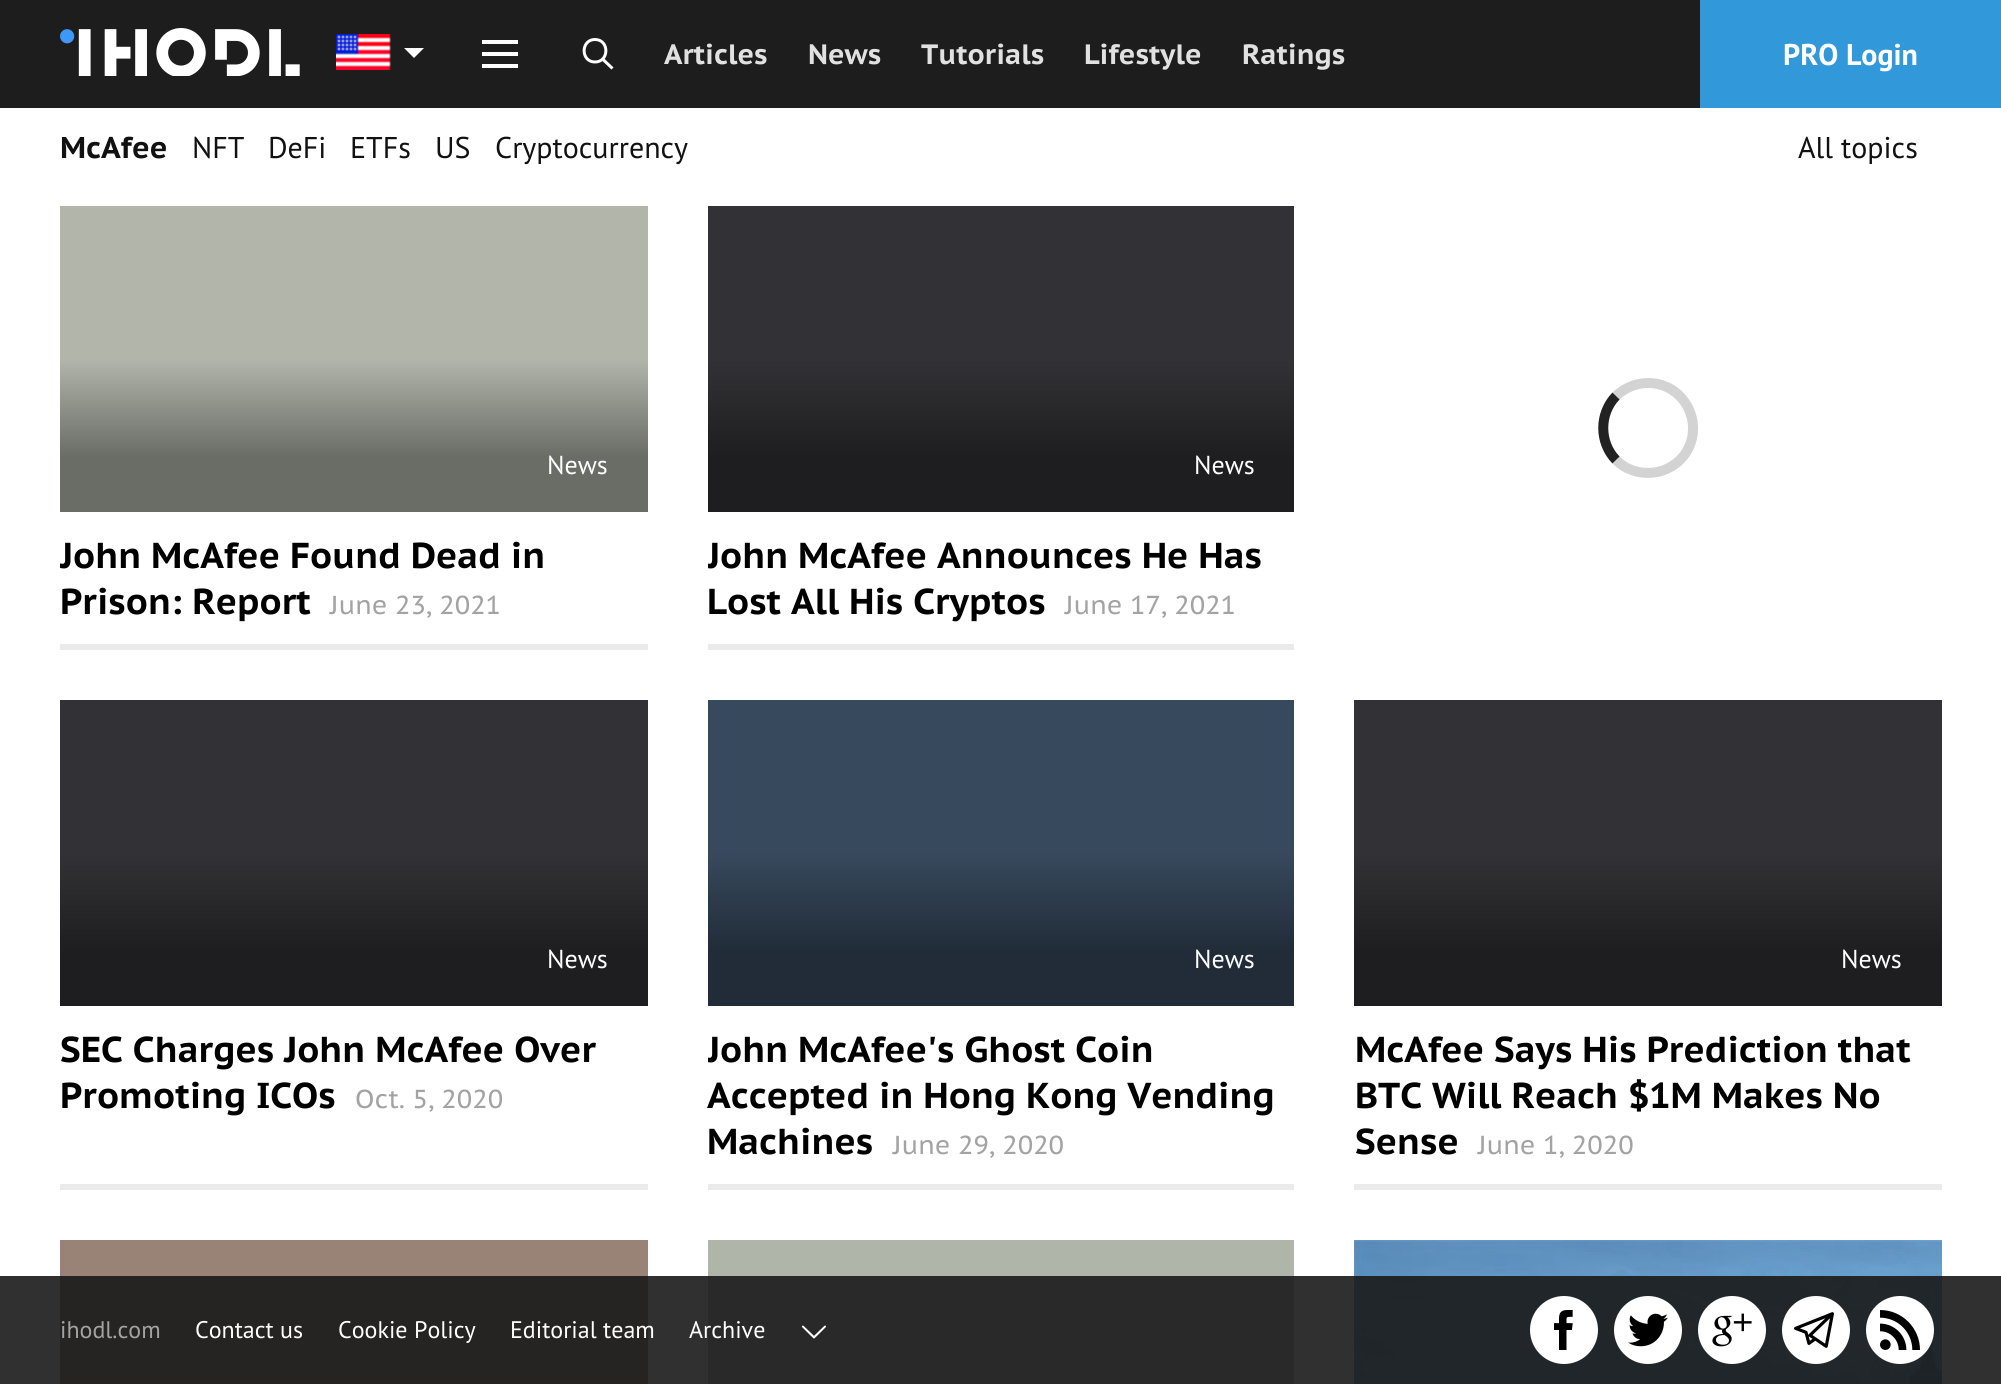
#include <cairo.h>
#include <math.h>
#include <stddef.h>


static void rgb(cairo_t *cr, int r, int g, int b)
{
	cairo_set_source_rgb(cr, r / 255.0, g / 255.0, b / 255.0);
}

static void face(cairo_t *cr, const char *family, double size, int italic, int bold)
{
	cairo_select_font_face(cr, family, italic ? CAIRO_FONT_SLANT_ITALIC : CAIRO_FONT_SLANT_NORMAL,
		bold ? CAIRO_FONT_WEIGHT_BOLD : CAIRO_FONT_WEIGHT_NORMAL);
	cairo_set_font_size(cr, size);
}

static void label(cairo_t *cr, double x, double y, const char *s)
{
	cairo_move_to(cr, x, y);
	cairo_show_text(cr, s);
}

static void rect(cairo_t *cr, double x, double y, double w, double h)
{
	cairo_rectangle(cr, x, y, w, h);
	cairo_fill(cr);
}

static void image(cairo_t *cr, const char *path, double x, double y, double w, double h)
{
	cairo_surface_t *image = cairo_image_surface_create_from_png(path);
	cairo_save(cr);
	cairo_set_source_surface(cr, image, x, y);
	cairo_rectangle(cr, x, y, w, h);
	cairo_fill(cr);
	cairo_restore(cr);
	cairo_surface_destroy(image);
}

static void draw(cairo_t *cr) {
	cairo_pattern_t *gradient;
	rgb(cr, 255, 255, 255);
	cairo_paint(cr);
	rgb(cr, 29, 29, 29);
	rect(cr, 0, 0, 1700, 108);
	image(cr, "image0.png", 60, 28, 240, 48);
	image(cr, "image1.png", 336, 34, 55, 36);
	rgb(cr, 255, 255, 255);
	cairo_new_path(cr);
	cairo_move_to(cr, 404, 48);
	cairo_line_to(cr, 424, 48);
	cairo_line_to(cr, 414, 58);
	cairo_close_path(cr);
	cairo_fill(cr);
	rect(cr, 482, 40, 36, 4);
	rect(cr, 482, 52, 36, 4);
	rect(cr, 482, 64, 36, 4);
	cairo_new_path(cr);
	cairo_move_to(cr, 601.5, 58);
	cairo_line_to(cr, 612.5, 68.5);
	cairo_move_to(cr, 595, 62);
	cairo_curve_to(cr, 609.5, 62, 609.5, 39.5, 595, 39.5);
	cairo_curve_to(cr, 580.5, 39.5, 580.5, 62, 595, 62);
	cairo_close_path(cr);
	cairo_set_line_width(cr, 3);
	cairo_stroke(cr);
	face(cr, "PT Sans Caption", 28, 0, 1);
	rgb(cr, 225, 225, 225);
	label(cr, 664, 64, "Articles");
	label(cr, 808, 64, "News");
	label(cr, 921, 64, "Tutorials");
	label(cr, 1084, 64, "Lifestyle");
	label(cr, 1242, 64, "Ratings");
	rgb(cr, 49, 152, 217);
	rect(cr, 1700, 0, 301, 108);
	face(cr, "PT Sans", 30, 0, 1);
	rgb(cr, 255, 255, 255);
	label(cr, 1783, 65, "PRO Login");
	face(cr, "PT Sans Caption", 30, 0, 1);
	rgb(cr, 17, 17, 17);
	label(cr, 60, 158, "McAfee");
	face(cr, "PT Sans", 30, 0, 0);
	label(cr, 192, 158, "NFT");
	label(cr, 268, 158, "DeFi");
	label(cr, 350, 158, "ETFs");
	label(cr, 435, 158, "US");
	label(cr, 495, 158, "Cryptocurrency");
	label(cr, 1798, 158, "All topics");
	cairo_new_path(cr);
	cairo_move_to(cr, 1616, 396);
	cairo_curve_to(cr, 1624.5, 388, 1636, 383, 1648, 383);
	cairo_curve_to(cr, 1688, 383, 1708, 431.5, 1680, 460);
	cairo_curve_to(cr, 1673.5, 466, 1665.5, 470.5, 1657, 472);
	cairo_curve_to(cr, 1642, 475, 1626.5, 470.5, 1616, 460);
	rgb(cr, 211, 211, 211);
	cairo_set_line_width(cr, 10);
	cairo_stroke(cr);
	cairo_new_path(cr);
	cairo_move_to(cr, 1616, 460);
	cairo_curve_to(cr, 1599, 442.5, 1599, 413.5, 1616, 396);
	rgb(cr, 34, 34, 34);
	cairo_stroke(cr);
	rgb(cr, 235, 235, 235);
	rect(cr, 60, 644, 588, 6);
	gradient = cairo_pattern_create_linear(354, 512, 354, 206);
	cairo_pattern_add_color_stop_rgba(gradient, 0.18, 0.416, 0.424, 0.4, 1);
	cairo_pattern_add_color_stop_rgba(gradient, 0.5, 0.694, 0.71, 0.667, 1);
	cairo_set_source(cr, gradient);
	cairo_pattern_destroy(gradient);
	rect(cr, 60, 206, 588, 306);
	face(cr, "PT Sans", 26, 0, 0);
	rgb(cr, 255, 255, 255);
	label(cr, 547, 474, "News");
	cairo_save(cr);
	cairo_rectangle(cr, 60, 206, 588, 438);
	cairo_clip(cr);
	face(cr, "PT Sans Caption", 36, 0, 1);
	rgb(cr, 0, 0, 0);
	label(cr, 60, 568, "John McAfee Found Dead in");
	cairo_restore(cr);
	face(cr, "PT Sans Caption", 36, 0, 1);
	rgb(cr, 0, 0, 0);
	label(cr, 60, 614, "Prison: Report");
	face(cr, "PT Sans Caption", 26, 0, 0);
	rgb(cr, 163, 163, 163);
	label(cr, 330, 614, "June 23, 2021");
	rgb(cr, 235, 235, 235);
	rect(cr, 708, 644, 586, 6);
	gradient = cairo_pattern_create_linear(1001, 512, 1001, 206);
	cairo_pattern_add_color_stop_rgba(gradient, 0.18, 0.118, 0.118, 0.125, 1);
	cairo_pattern_add_color_stop_rgba(gradient, 0.5, 0.196, 0.196, 0.212, 1);
	cairo_set_source(cr, gradient);
	cairo_pattern_destroy(gradient);
	rect(cr, 708, 206, 586, 306);
	face(cr, "PT Sans", 26, 0, 0);
	rgb(cr, 255, 255, 255);
	label(cr, 1194, 474, "News");
	cairo_save(cr);
	cairo_rectangle(cr, 708, 206, 586, 438);
	cairo_clip(cr);
	face(cr, "PT Sans Caption", 36, 0, 1);
	rgb(cr, 0, 0, 0);
	label(cr, 707, 568, "John McAfee Announces He Has");
	cairo_restore(cr);
	face(cr, "PT Sans Caption", 36, 0, 1);
	rgb(cr, 0, 0, 0);
	label(cr, 707, 614, "Lost All His Cryptos");
	face(cr, "PT Sans Caption", 26, 0, 0);
	rgb(cr, 163, 163, 163);
	label(cr, 1065, 614, "June 17, 2021");
	rgb(cr, 235, 235, 235);
	rect(cr, 60, 1184, 588, 6);
	gradient = cairo_pattern_create_linear(354, 1006, 354, 700);
	cairo_pattern_add_color_stop_rgba(gradient, 0.18, 0.118, 0.118, 0.125, 1);
	cairo_pattern_add_color_stop_rgba(gradient, 0.5, 0.196, 0.196, 0.212, 1);
	cairo_set_source(cr, gradient);
	cairo_pattern_destroy(gradient);
	rect(cr, 60, 700, 588, 306);
	face(cr, "PT Sans", 26, 0, 0);
	rgb(cr, 255, 255, 255);
	label(cr, 547, 968, "News");
	face(cr, "PT Sans Caption", 36, 0, 1);
	rgb(cr, 0, 0, 0);
	label(cr, 60, 1062, "SEC Charges John McAfee Over");
	label(cr, 60, 1108, "Promoting ICOs");
	face(cr, "PT Sans Caption", 26, 0, 0);
	rgb(cr, 163, 163, 163);
	label(cr, 355, 1108, "Oct. 5, 2020");
	rgb(cr, 235, 235, 235);
	rect(cr, 708, 1184, 586, 6);
	gradient = cairo_pattern_create_linear(1001, 1006, 1001, 700);
	cairo_pattern_add_color_stop_rgba(gradient, 0.18, 0.129, 0.173, 0.22, 1);
	cairo_pattern_add_color_stop_rgba(gradient, 0.5, 0.216, 0.286, 0.365, 1);
	cairo_set_source(cr, gradient);
	cairo_pattern_destroy(gradient);
	rect(cr, 708, 700, 586, 306);
	face(cr, "PT Sans", 26, 0, 0);
	rgb(cr, 255, 255, 255);
	label(cr, 1194, 968, "News");
	cairo_save(cr);
	cairo_rectangle(cr, 708, 700, 586, 484);
	cairo_clip(cr);
	face(cr, "PT Sans Caption", 36, 0, 1);
	rgb(cr, 0, 0, 0);
	label(cr, 707, 1062, "John McAfee's Ghost Coin");
	cairo_restore(cr);
	face(cr, "PT Sans Caption", 36, 0, 1);
	rgb(cr, 0, 0, 0);
	label(cr, 707, 1108, "Accepted in Hong Kong Vending");
	label(cr, 707, 1154, "Machines");
	face(cr, "PT Sans Caption", 26, 0, 0);
	rgb(cr, 163, 163, 163);
	label(cr, 893, 1154, "June 29, 2020");
	rgb(cr, 235, 235, 235);
	rect(cr, 1354, 1184, 588, 6);
	gradient = cairo_pattern_create_linear(1648, 1006, 1648, 700);
	cairo_pattern_add_color_stop_rgba(gradient, 0.18, 0.118, 0.118, 0.125, 1);
	cairo_pattern_add_color_stop_rgba(gradient, 0.5, 0.196, 0.196, 0.212, 1);
	cairo_set_source(cr, gradient);
	cairo_pattern_destroy(gradient);
	rect(cr, 1354, 700, 588, 306);
	face(cr, "PT Sans", 26, 0, 0);
	rgb(cr, 255, 255, 255);
	label(cr, 1841, 968, "News");
	face(cr, "PT Sans Caption", 36, 0, 1);
	rgb(cr, 0, 0, 0);
	label(cr, 1355, 1062, "McAfee Says His Prediction that");
	label(cr, 1355, 1108, "BTC Will Reach $1M Makes No");
	label(cr, 1355, 1154, "Sense");
	face(cr, "PT Sans Caption", 26, 0, 0);
	rgb(cr, 163, 163, 163);
	label(cr, 1478, 1154, "June 1, 2020");
	rgb(cr, 153, 131, 118);
	rect(cr, 60, 1240, 588, 144);
	rgb(cr, 176, 181, 169);
	rect(cr, 708, 1240, 586, 144);
	image(cr, "image2.png", 1354, 1240, 588, 144);
	cairo_set_source_rgba(cr, 0.102, 0.102, 0.102, 0.9);
	rect(cr, 0, 1276, 2001, 108);
	face(cr, "PT Sans", 24, 0, 0);
	rgb(cr, 163, 163, 163);
	label(cr, 60, 1338, "ihodl.com");
	rgb(cr, 255, 255, 255);
	label(cr, 195, 1338, "Contact us");
	label(cr, 338, 1338, "Cookie Policy");
	label(cr, 510, 1338, "Editorial team");
	label(cr, 689, 1338, "Archive");
	image(cr, "image3.png", 801, 1325, 25, 14);
	cairo_arc(cr, 1564, 1330, 34, 0, 2 * M_PI);
	cairo_fill(cr);
	image(cr, "image4.png", 1554, 1310, 19, 40);
	cairo_arc(cr, 1648, 1330, 34, 0, 2 * M_PI);
	cairo_fill(cr);
	image(cr, "image5.png", 1628, 1313, 40, 34);
	cairo_arc(cr, 1732, 1330, 34, 0, 2 * M_PI);
	cairo_fill(cr);
	image(cr, "image6.png", 1712, 1313, 40, 34);
	cairo_arc(cr, 1816, 1330, 34, 0, 2 * M_PI);
	cairo_fill(cr);
	image(cr, "image7.png", 1794, 1312, 40, 36);
	cairo_arc(cr, 1900, 1330, 34, 0, 2 * M_PI);
	cairo_fill(cr);
	image(cr, "image8.png", 1880, 1310, 40, 40);
}

int main(void) {
	cairo_surface_t *surface = cairo_image_surface_create(CAIRO_FORMAT_RGB24, 2001, 1384);
	cairo_t *cr = cairo_create(surface);
	cairo_font_options_t *options = cairo_font_options_create();
	cairo_font_options_set_hint_metrics(options, CAIRO_HINT_METRICS_OFF);
	cairo_font_options_set_hint_style(options, CAIRO_HINT_STYLE_NONE);
	cairo_set_font_options(cr, options);
	cairo_set_miter_limit(cr, 4);
	draw(cr);
	cairo_surface_write_to_png(surface, "render.png");
	cairo_font_options_destroy(options);
	cairo_destroy(cr);
	cairo_surface_destroy(surface);
	return 0;
}
